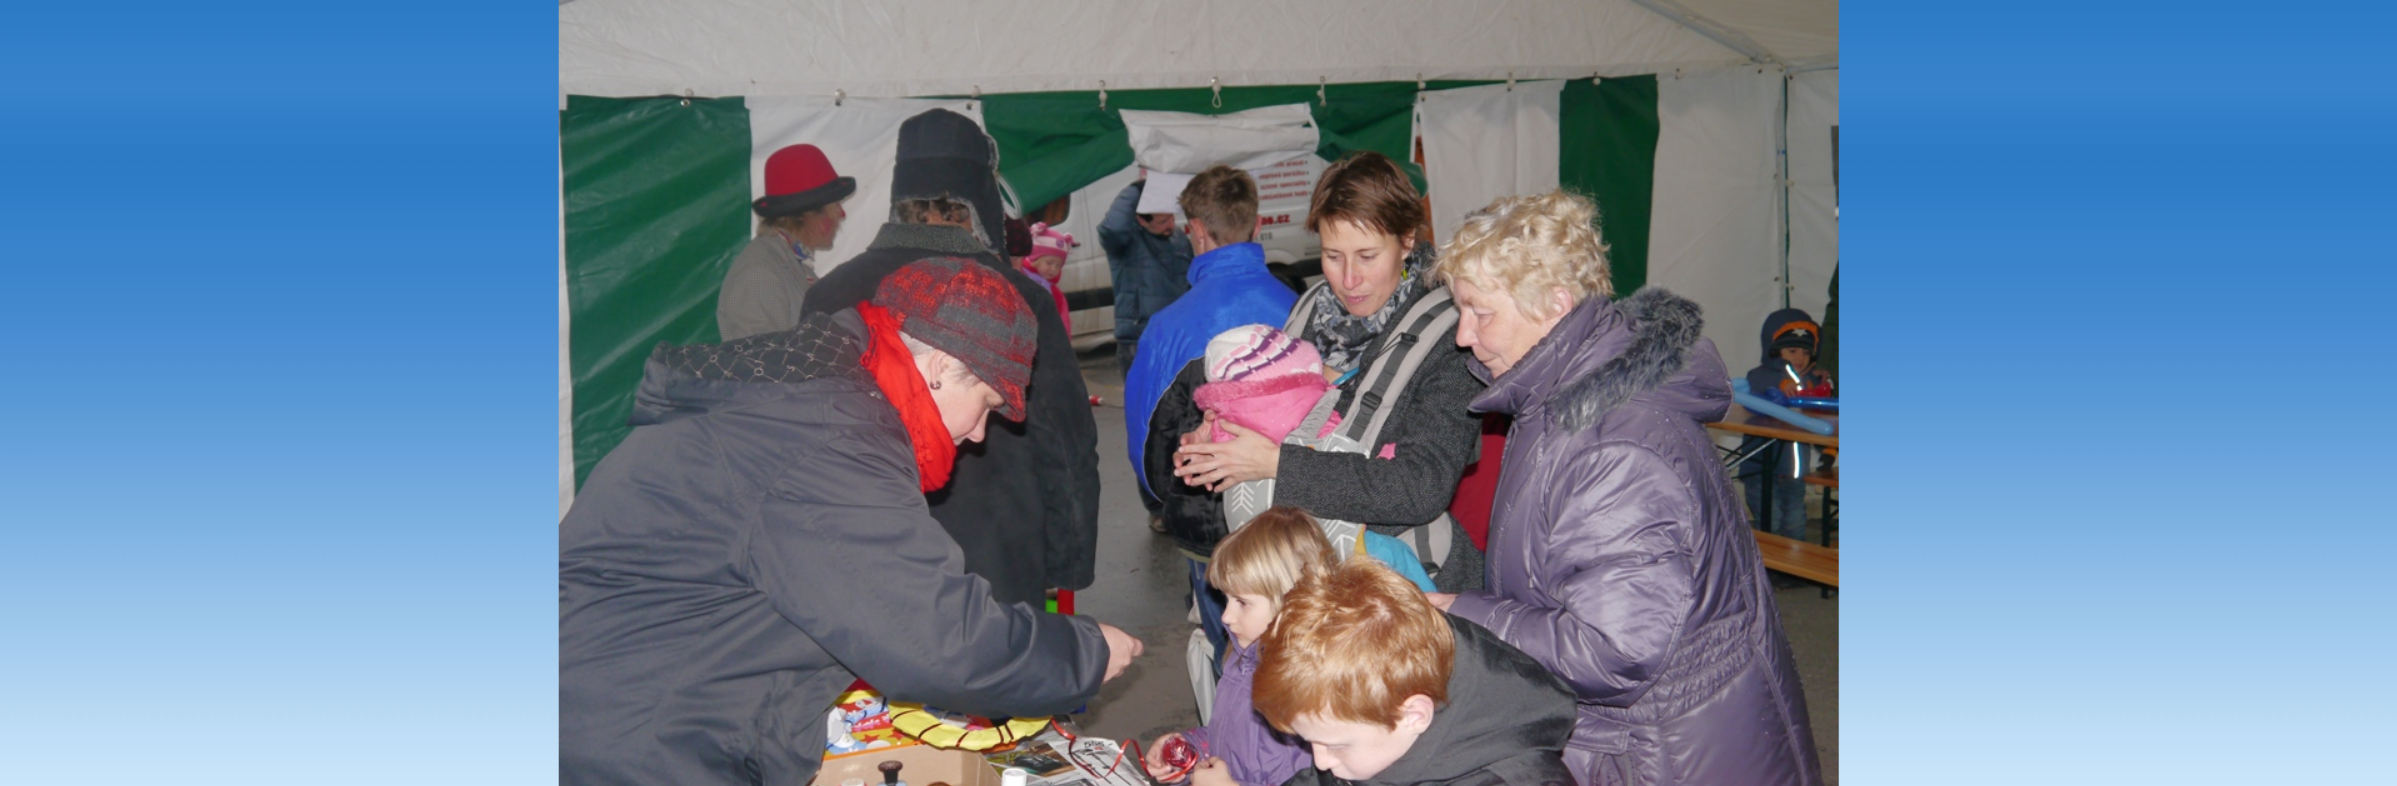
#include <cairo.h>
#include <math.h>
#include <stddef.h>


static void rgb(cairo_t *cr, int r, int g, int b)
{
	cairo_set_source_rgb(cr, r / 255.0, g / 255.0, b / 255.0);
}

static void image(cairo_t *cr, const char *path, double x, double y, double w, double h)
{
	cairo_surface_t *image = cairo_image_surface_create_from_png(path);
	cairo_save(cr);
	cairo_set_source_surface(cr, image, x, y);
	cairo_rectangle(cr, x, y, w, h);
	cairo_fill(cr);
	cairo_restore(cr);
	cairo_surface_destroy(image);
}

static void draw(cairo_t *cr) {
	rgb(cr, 255, 255, 255);
	cairo_paint(cr);
	image(cr, "image0.png", 0, 0, 2397, 786);
	image(cr, "image1.png", 558, 0, 1281, 786);
}

int main(void) {
	cairo_surface_t *surface = cairo_image_surface_create(CAIRO_FORMAT_RGB24, 2397, 786);
	cairo_t *cr = cairo_create(surface);
	cairo_font_options_t *options = cairo_font_options_create();
	cairo_font_options_set_hint_metrics(options, CAIRO_HINT_METRICS_OFF);
	cairo_font_options_set_hint_style(options, CAIRO_HINT_STYLE_NONE);
	cairo_set_font_options(cr, options);
	cairo_set_miter_limit(cr, 4);
	draw(cr);
	cairo_surface_write_to_png(surface, "render.png");
	cairo_font_options_destroy(options);
	cairo_destroy(cr);
	cairo_surface_destroy(surface);
	return 0;
}
